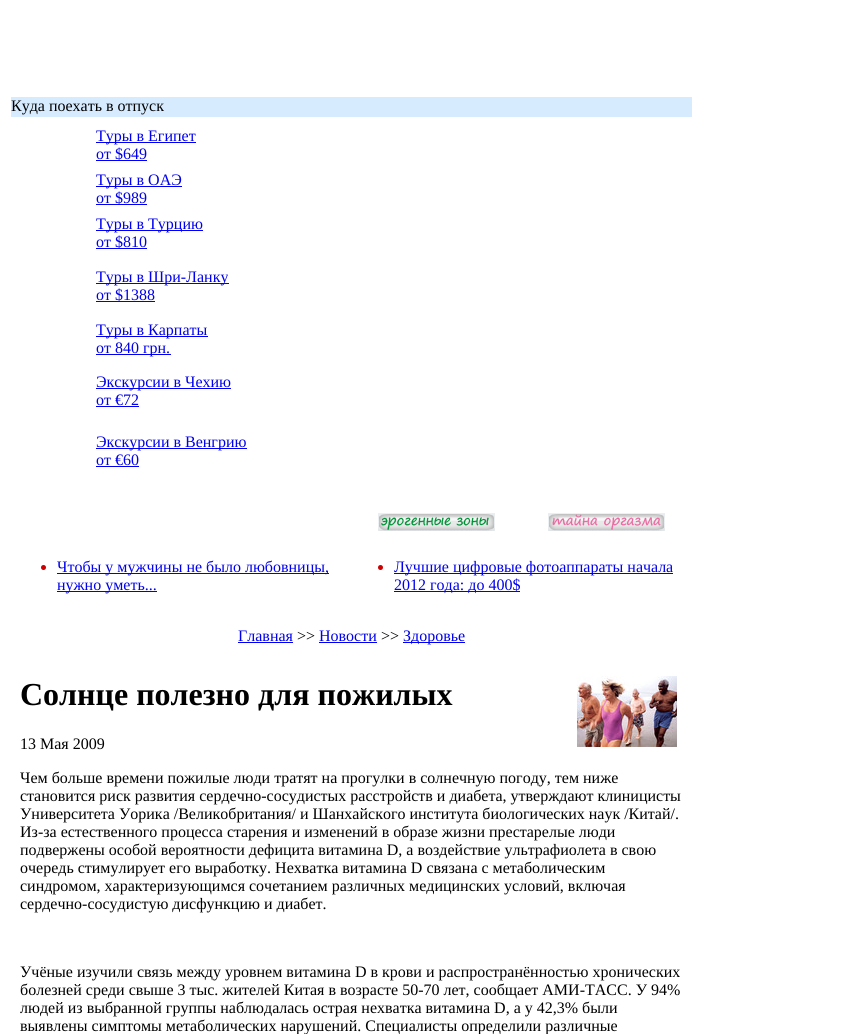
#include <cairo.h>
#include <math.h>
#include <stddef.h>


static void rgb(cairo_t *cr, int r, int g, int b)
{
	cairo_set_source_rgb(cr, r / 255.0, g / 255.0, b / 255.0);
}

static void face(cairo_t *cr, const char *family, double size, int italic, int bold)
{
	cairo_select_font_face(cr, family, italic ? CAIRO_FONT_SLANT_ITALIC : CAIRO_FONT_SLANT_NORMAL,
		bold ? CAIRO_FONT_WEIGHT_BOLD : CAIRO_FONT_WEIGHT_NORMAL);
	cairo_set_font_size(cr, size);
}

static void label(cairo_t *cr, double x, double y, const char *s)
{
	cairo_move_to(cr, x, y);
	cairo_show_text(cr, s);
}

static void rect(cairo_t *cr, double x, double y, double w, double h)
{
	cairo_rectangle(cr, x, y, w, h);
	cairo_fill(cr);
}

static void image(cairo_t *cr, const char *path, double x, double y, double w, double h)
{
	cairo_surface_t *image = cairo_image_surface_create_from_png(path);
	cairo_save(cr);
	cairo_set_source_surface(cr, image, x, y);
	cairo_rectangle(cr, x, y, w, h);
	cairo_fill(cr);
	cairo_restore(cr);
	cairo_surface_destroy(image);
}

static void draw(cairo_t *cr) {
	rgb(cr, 255, 255, 255);
	cairo_paint(cr);
	rgb(cr, 215, 235, 255);
	rect(cr, 11, 97, 681, 20);
	face(cr, "Liberation Serif", 16, 0, 0);
	rgb(cr, 0, 0, 0);
	label(cr, 11, 111, "Куда поехать в отпуск");
	rgb(cr, 0, 0, 238);
	rect(cr, 96, 142, 100, 1);
	label(cr, 96, 141, "Туры в Египет");
	rect(cr, 96, 160, 51, 1);
	label(cr, 96, 159, "от $649");
	rect(cr, 96, 186, 86, 1);
	label(cr, 96, 185, "Туры в ОАЭ");
	rect(cr, 96, 204, 51, 1);
	label(cr, 96, 203, "от $989");
	rect(cr, 96, 230, 107, 1);
	label(cr, 96, 229, "Туры в Турцию");
	rect(cr, 96, 248, 51, 1);
	label(cr, 96, 247, "от $810");
	rect(cr, 96, 283, 133, 1);
	label(cr, 96, 282, "Туры в Шри-Ланку");
	rect(cr, 96, 301, 59, 1);
	label(cr, 96, 300, "от $1388");
	rect(cr, 96, 336, 112, 1);
	label(cr, 96, 335, "Туры в Карпаты");
	rect(cr, 96, 354, 75, 1);
	label(cr, 96, 353, "от 840 грн.");
	rect(cr, 96, 388, 135, 1);
	label(cr, 96, 387, "Экскурсии в Чехию");
	label(cr, 96, 405, "от €72");
	rect(cr, 96, 406, 43, 1);
	rect(cr, 96, 448, 151, 1);
	label(cr, 96, 447, "Экскурсии в Венгрию");
	label(cr, 96, 465, "от €60");
	rect(cr, 96, 466, 43, 1);
	image(cr, "image0.png", 378, 513, 117, 18);
	image(cr, "image1.png", 548, 513, 117, 18);
	rgb(cr, 204, 0, 0);
	cairo_arc(cr, 43.5, 567.5, 2.5, 0, 2 * M_PI);
	cairo_fill(cr);
	rgb(cr, 0, 0, 238);
	rect(cr, 57, 573, 272, 1);
	label(cr, 57, 572, "Чтобы у мужчины не было любовницы,");
	rect(cr, 57, 591, 100, 1);
	label(cr, 57, 590, "нужно уметь...");
	rgb(cr, 204, 0, 0);
	cairo_new_path(cr);
	cairo_arc(cr, 380.5, 567.5, 2.5, 0, 2 * M_PI);
	cairo_fill(cr);
	rgb(cr, 0, 0, 238);
	rect(cr, 394, 573, 279, 1);
	label(cr, 394, 572, "Лучшие цифровые фотоаппараты начала");
	rect(cr, 394, 591, 126, 1);
	label(cr, 394, 590, "2012 года: до 400$");
	label(cr, 238, 641, "Главная");
	rect(cr, 238, 642, 55, 1);
	rgb(cr, 0, 0, 0);
	label(cr, 297, 641, ">>");
	rgb(cr, 0, 0, 238);
	label(cr, 319, 641, "Новости");
	rect(cr, 319, 642, 58, 1);
	rgb(cr, 0, 0, 0);
	label(cr, 381, 641, ">>");
	rgb(cr, 0, 0, 238);
	rect(cr, 403, 642, 62, 1);
	label(cr, 403, 641, "Здоровье");
	face(cr, "Liberation Serif", 32, 0, 1);
	rgb(cr, 0, 0, 0);
	label(cr, 20, 705, "Солнце полезно для пожилых");
	image(cr, "image2.png", 577, 676, 100, 71);
	face(cr, "Liberation Serif", 16, 0, 0);
	label(cr, 20, 749, "13 Мая 2009");
	label(cr, 20, 783, "Чем больше времени пожилые люди тратят на прогулки в солнечную погоду, тем ниже");
	label(cr, 20, 801, "становится риск развития сердечно-сосудистых расстройств и диабета, утверждают клиницисты");
	label(cr, 20, 819, "Университета Уорика /Великобритания/ и Шанхайского института биологических наук /Китай/.");
	label(cr, 20, 837, "Из-за естественного процесса старения и изменений в образе жизни престарелые люди");
	label(cr, 20, 855, "подвержены особой вероятности дефицита витамина D, а воздействие ультрафиолета в свою");
	label(cr, 20, 873, "очередь стимулирует его выработку. Нехватка витамина D связана с метаболическим");
	label(cr, 20, 891, "синдромом, характеризующимся сочетанием различных медицинских условий, включая");
	label(cr, 20, 909, "сердечно-сосудистую дисфункцию и диабет.");
	label(cr, 20, 977, "Учёные изучили связь между уровнем витамина D в крови и распространённостью хронических");
	label(cr, 20, 995, "болезней среди свыше 3 тыс. жителей Китая в возрасте 50-70 лет, сообщает АМИ-ТАСС. У 94%");
	label(cr, 20, 1013, "людей из выбранной группы наблюдалась острая нехватка витамина D, а у 42,3% были");
	label(cr, 20, 1031, "выявлены симптомы метаболических нарушений. Специалисты определили различные");
}

int main(void) {
	cairo_surface_t *surface = cairo_image_surface_create(CAIRO_FORMAT_RGB24, 866, 1034);
	cairo_t *cr = cairo_create(surface);
	cairo_font_options_t *options = cairo_font_options_create();
	cairo_font_options_set_hint_metrics(options, CAIRO_HINT_METRICS_OFF);
	cairo_font_options_set_hint_style(options, CAIRO_HINT_STYLE_NONE);
	cairo_set_font_options(cr, options);
	cairo_set_miter_limit(cr, 4);
	draw(cr);
	cairo_surface_write_to_png(surface, "render.png");
	cairo_font_options_destroy(options);
	cairo_destroy(cr);
	cairo_surface_destroy(surface);
	return 0;
}
